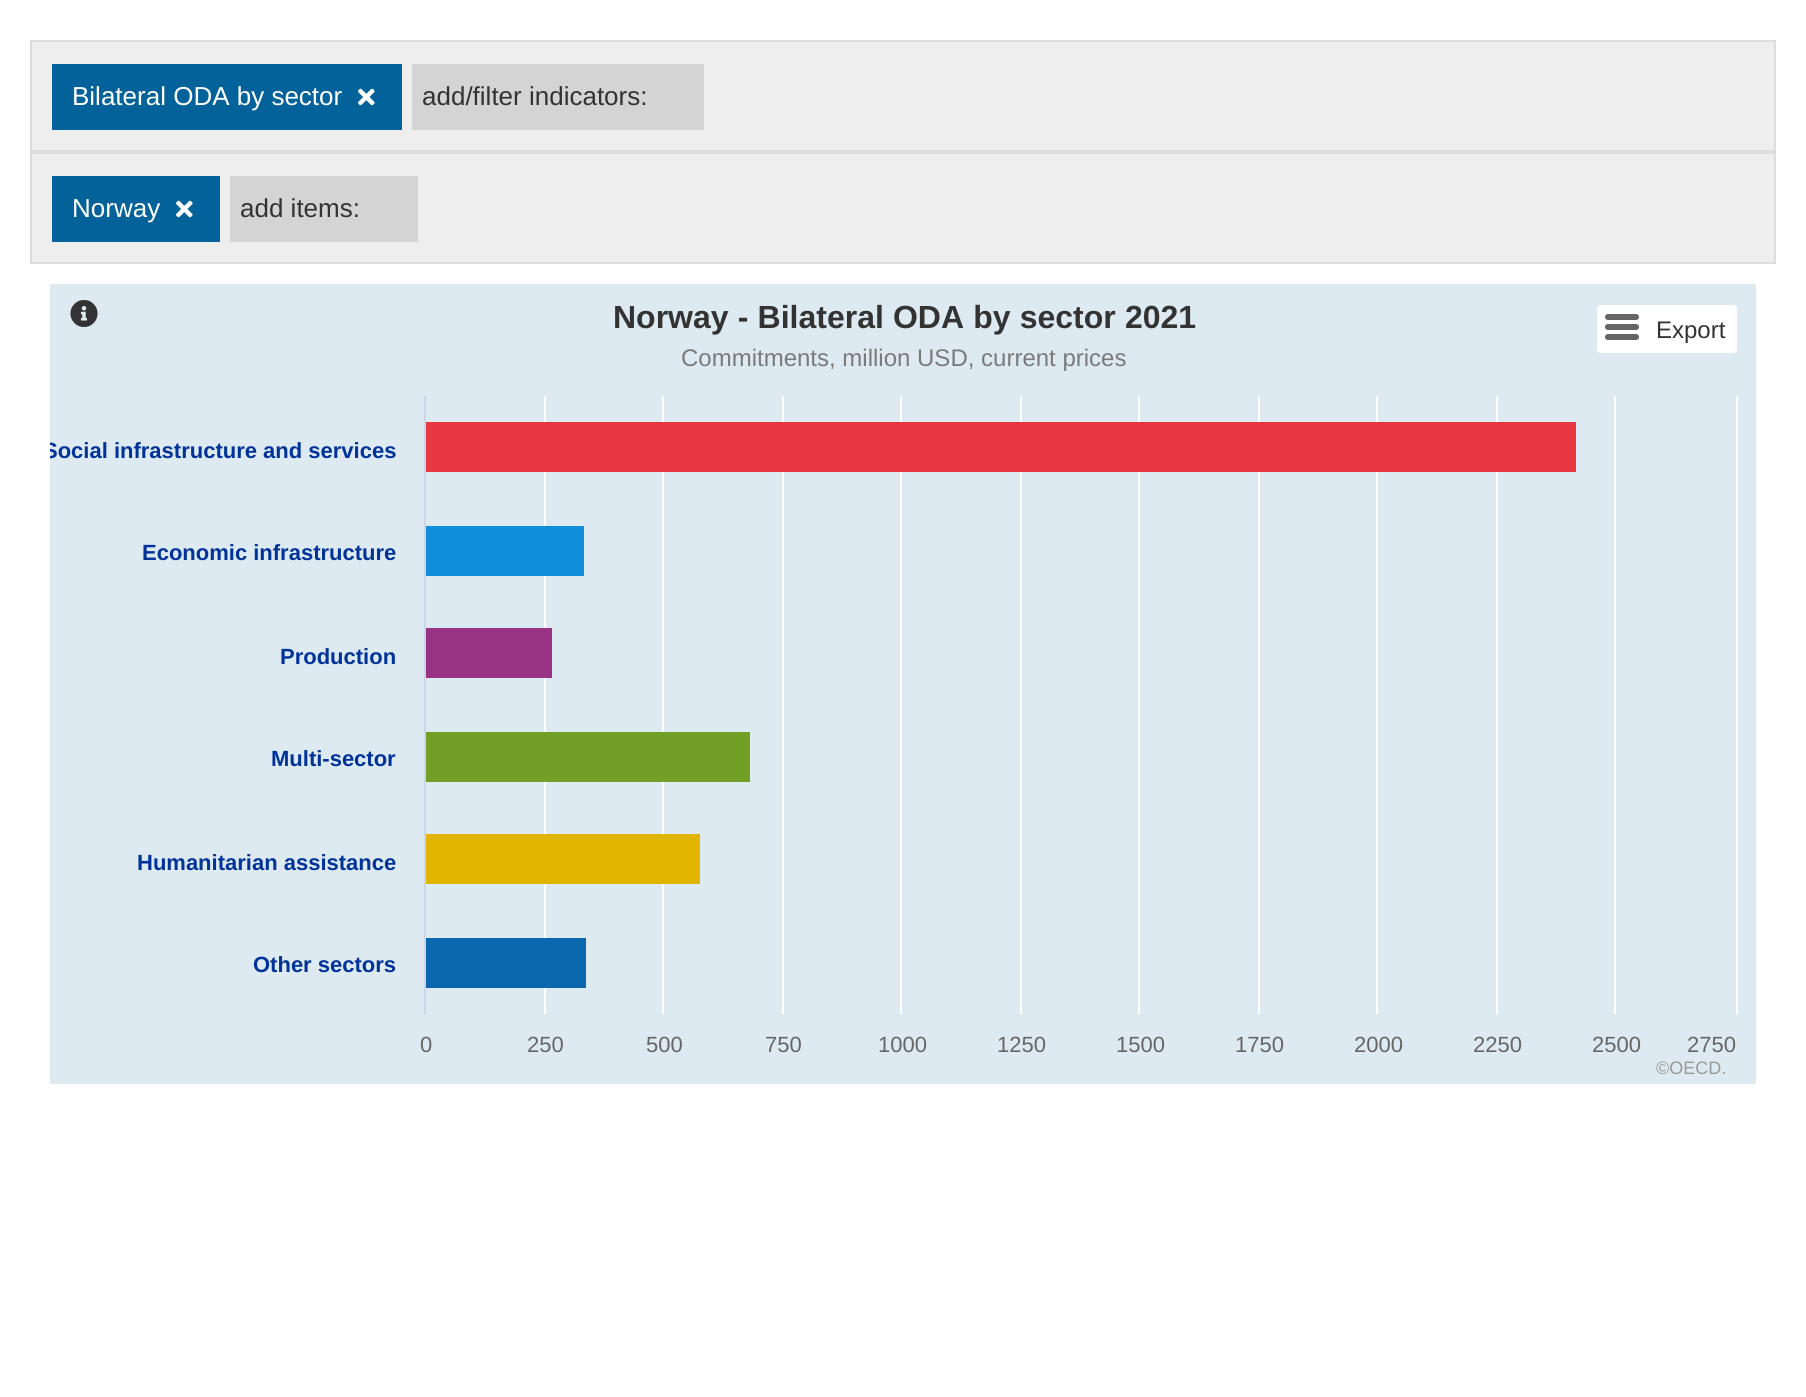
#include <cairo.h>
#include <math.h>
#include <stddef.h>


static void rgb(cairo_t *cr, int r, int g, int b)
{
	cairo_set_source_rgb(cr, r / 255.0, g / 255.0, b / 255.0);
}

static void face(cairo_t *cr, const char *family, double size, int italic, int bold)
{
	cairo_select_font_face(cr, family, italic ? CAIRO_FONT_SLANT_ITALIC : CAIRO_FONT_SLANT_NORMAL,
		bold ? CAIRO_FONT_WEIGHT_BOLD : CAIRO_FONT_WEIGHT_NORMAL);
	cairo_set_font_size(cr, size);
}

static void label(cairo_t *cr, double x, double y, const char *s)
{
	cairo_move_to(cr, x, y);
	cairo_show_text(cr, s);
}

static void tracked(cairo_t *cr, double x, double y, const char *s, double letter, double word)
{
	cairo_move_to(cr, x, y);
	while (*s) {
		char ch[5] = {0};
		int n = 0;
		do ch[n++] = *s++; while ((*s & 0xC0) == 0x80);
		cairo_show_text(cr, ch);
		cairo_rel_move_to(cr, letter + word * (*ch == ' '), 0);
	}
}

static void rect(cairo_t *cr, double x, double y, double w, double h)
{
	cairo_rectangle(cr, x, y, w, h);
	cairo_fill(cr);
}

static void image(cairo_t *cr, const char *path, double x, double y, double w, double h)
{
	cairo_surface_t *image = cairo_image_surface_create_from_png(path);
	cairo_save(cr);
	cairo_set_source_surface(cr, image, x, y);
	cairo_rectangle(cr, x, y, w, h);
	cairo_fill(cr);
	cairo_restore(cr);
	cairo_surface_destroy(image);
}

static void draw(cairo_t *cr) {
	rgb(cr, 255, 255, 255);
	cairo_paint(cr);
	rgb(cr, 238, 238, 238);
	cairo_rectangle(cr, 31, 41, 1744, 110);
	cairo_fill_preserve(cr);
	rgb(cr, 221, 221, 221);
	cairo_stroke(cr);
	rgb(cr, 4, 98, 154);
	rect(cr, 52, 64, 350, 66);
	face(cr, "Liberation Sans", 26, 0, 0);
	rgb(cr, 255, 255, 255);
	label(cr, 72, 105, "Bilateral ODA by sector");
	image(cr, "image0.png", 358, 88, 17, 18);
	rgb(cr, 212, 212, 212);
	rect(cr, 412, 64, 292, 66);
	rgb(cr, 51, 51, 51);
	label(cr, 422, 105, "add/filter indicators:");
	rgb(cr, 238, 238, 238);
	cairo_rectangle(cr, 31, 153, 1744, 110);
	cairo_fill_preserve(cr);
	rgb(cr, 221, 221, 221);
	cairo_stroke(cr);
	rgb(cr, 4, 98, 154);
	rect(cr, 52, 176, 168, 66);
	rgb(cr, 255, 255, 255);
	label(cr, 72, 217, "Norway");
	image(cr, "image0.png", 176, 200, 17, 18);
	rgb(cr, 212, 212, 212);
	rect(cr, 230, 176, 188, 66);
	rgb(cr, 51, 51, 51);
	label(cr, 240, 217, "add items:");
	image(cr, "image2.png", 50, 284, 1706, 800);
	image(cr, "image1.png", 70, 300, 28, 27);
	face(cr, "Liberation Sans", 32, 0, 1);
	tracked(cr, 613, 328, "Norway - Bilateral ODA by sector 2021", 0, 0.25);
	face(cr, "Liberation Sans", 24, 0, 0);
	label(cr, 1656, 338, "Export");
	rgb(cr, 122, 122, 122);
	label(cr, 681, 366, "Commitments, million USD, current prices");
	cairo_save(cr);
	cairo_rectangle(cr, 50, 284, 1706, 800);
	cairo_clip(cr);
	face(cr, "Liberation Sans", 22, 0, 1);
	rgb(cr, 0, 51, 153);
	label(cr, 43, 458, "Social infrastructure and services");
	cairo_restore(cr);
	face(cr, "Liberation Sans", 22, 0, 1);
	rgb(cr, 0, 51, 153);
	label(cr, 142, 560, "Economic infrastructure");
	label(cr, 280, 664, "Production");
	label(cr, 271, 766, "Multi-sector");
	label(cr, 137, 870, "Humanitarian assistance");
	label(cr, 253, 972, "Other sectors");
	face(cr, "Liberation Sans", 22, 0, 0);
	rgb(cr, 102, 102, 102);
	label(cr, 420, 1052, "0");
	label(cr, 527, 1052, "250");
	label(cr, 646, 1052, "500");
	label(cr, 765, 1052, "750");
	label(cr, 878, 1052, "1000");
	label(cr, 997, 1052, "1250");
	label(cr, 1116, 1052, "1500");
	label(cr, 1235, 1052, "1750");
	label(cr, 1354, 1052, "2000");
	label(cr, 1473, 1052, "2250");
	label(cr, 1592, 1052, "2500");
	label(cr, 1687, 1052, "2750");
	face(cr, "Liberation Sans", 18, 0, 0);
	rgb(cr, 153, 153, 153);
	label(cr, 1656, 1074, "©OECD.");
}

int main(void) {
	cairo_surface_t *surface = cairo_image_surface_create(CAIRO_FORMAT_RGB24, 1806, 1397);
	cairo_t *cr = cairo_create(surface);
	cairo_font_options_t *options = cairo_font_options_create();
	cairo_font_options_set_hint_metrics(options, CAIRO_HINT_METRICS_OFF);
	cairo_font_options_set_hint_style(options, CAIRO_HINT_STYLE_NONE);
	cairo_set_font_options(cr, options);
	cairo_set_miter_limit(cr, 4);
	draw(cr);
	cairo_surface_write_to_png(surface, "render.png");
	cairo_font_options_destroy(options);
	cairo_destroy(cr);
	cairo_surface_destroy(surface);
	return 0;
}
